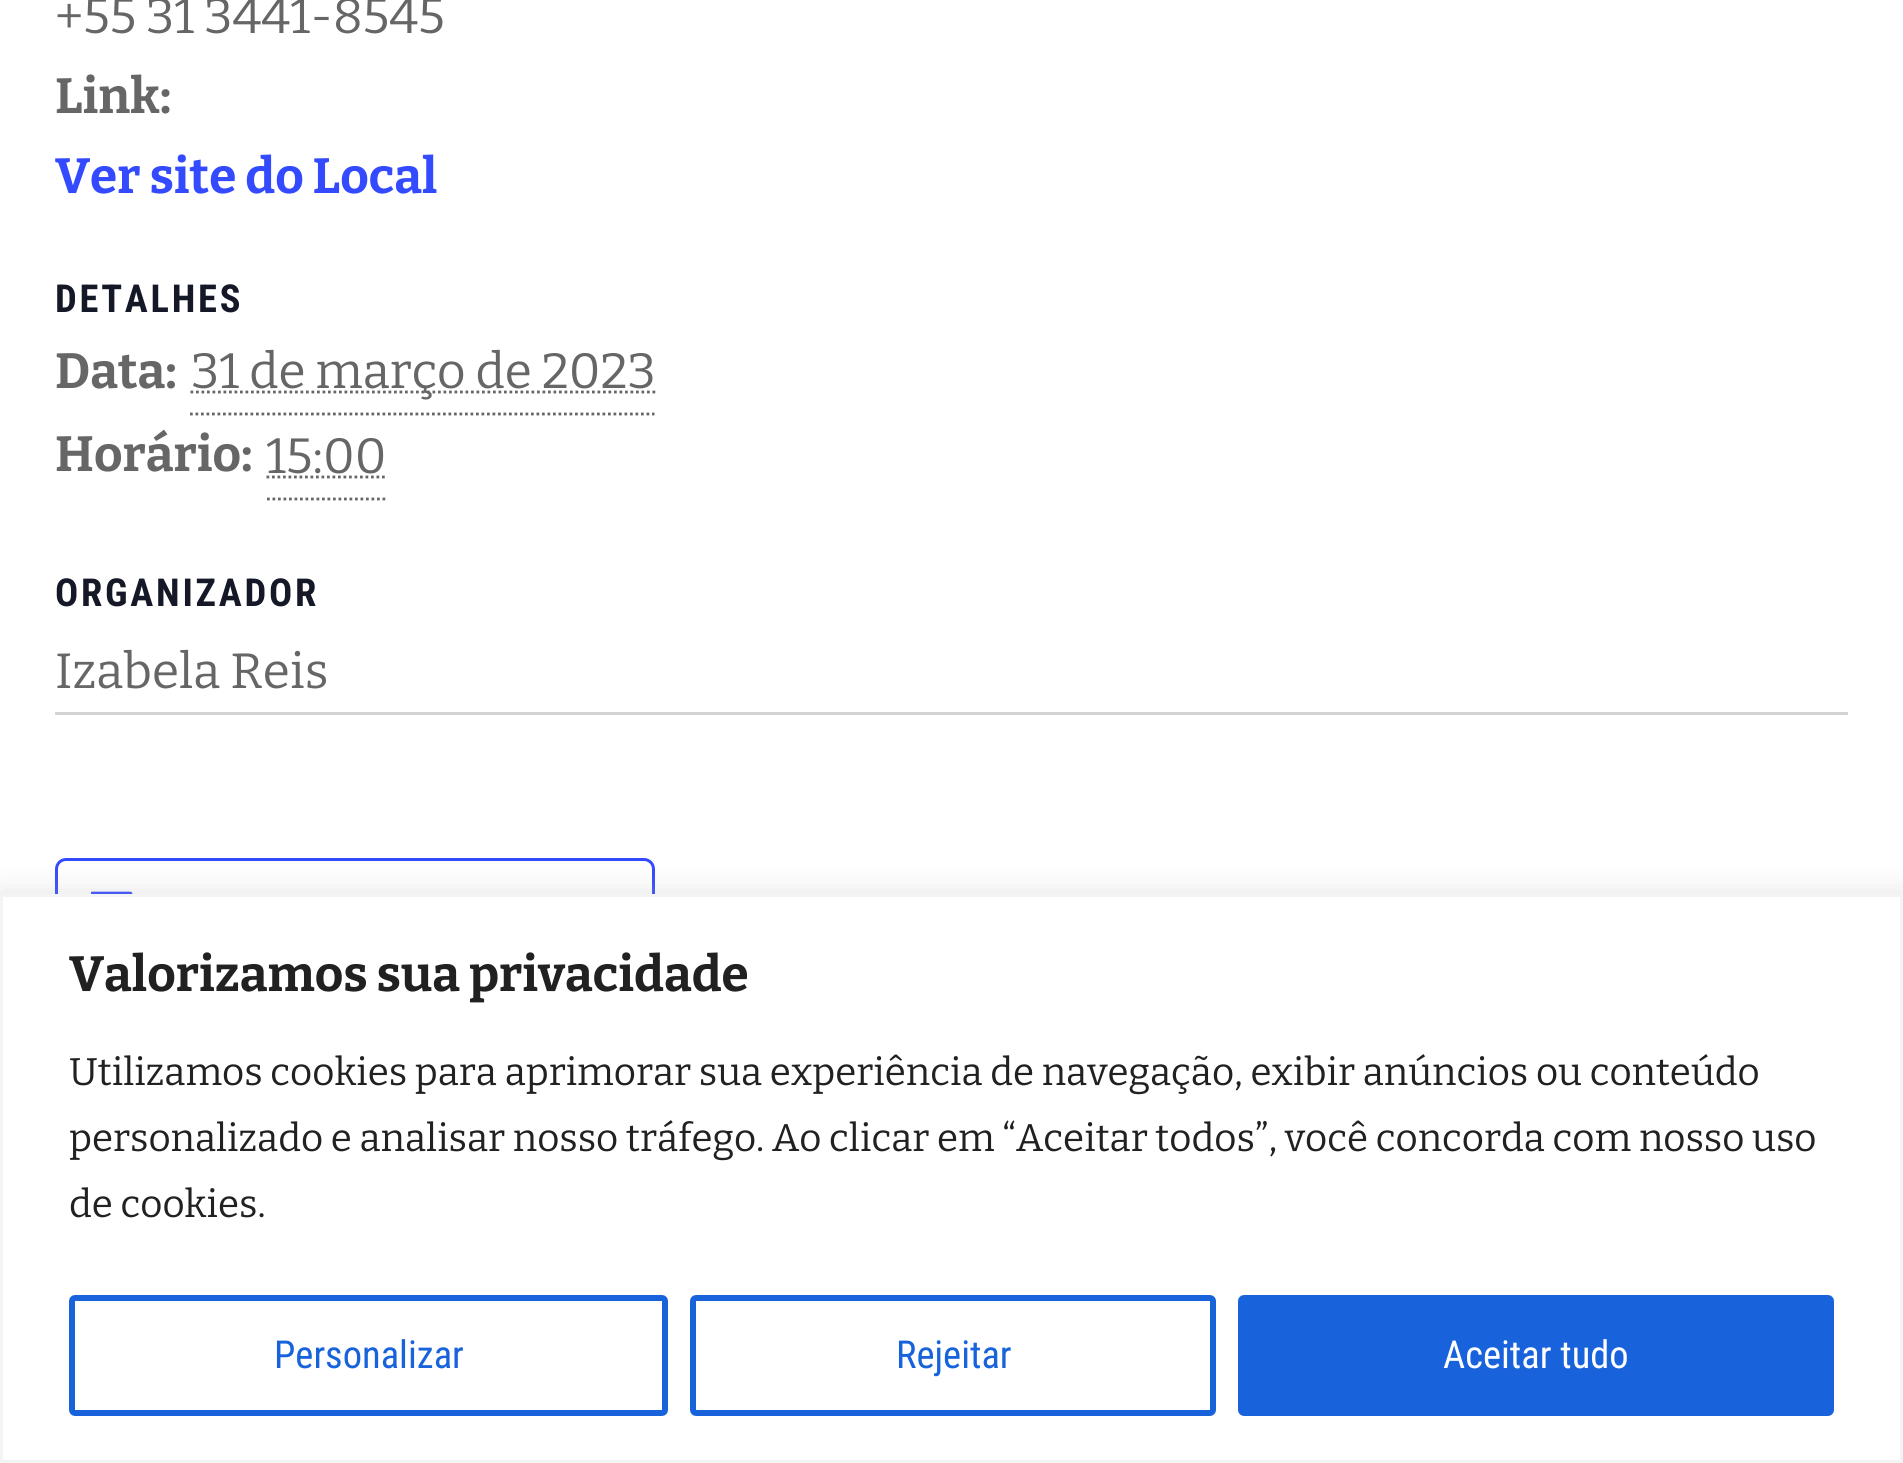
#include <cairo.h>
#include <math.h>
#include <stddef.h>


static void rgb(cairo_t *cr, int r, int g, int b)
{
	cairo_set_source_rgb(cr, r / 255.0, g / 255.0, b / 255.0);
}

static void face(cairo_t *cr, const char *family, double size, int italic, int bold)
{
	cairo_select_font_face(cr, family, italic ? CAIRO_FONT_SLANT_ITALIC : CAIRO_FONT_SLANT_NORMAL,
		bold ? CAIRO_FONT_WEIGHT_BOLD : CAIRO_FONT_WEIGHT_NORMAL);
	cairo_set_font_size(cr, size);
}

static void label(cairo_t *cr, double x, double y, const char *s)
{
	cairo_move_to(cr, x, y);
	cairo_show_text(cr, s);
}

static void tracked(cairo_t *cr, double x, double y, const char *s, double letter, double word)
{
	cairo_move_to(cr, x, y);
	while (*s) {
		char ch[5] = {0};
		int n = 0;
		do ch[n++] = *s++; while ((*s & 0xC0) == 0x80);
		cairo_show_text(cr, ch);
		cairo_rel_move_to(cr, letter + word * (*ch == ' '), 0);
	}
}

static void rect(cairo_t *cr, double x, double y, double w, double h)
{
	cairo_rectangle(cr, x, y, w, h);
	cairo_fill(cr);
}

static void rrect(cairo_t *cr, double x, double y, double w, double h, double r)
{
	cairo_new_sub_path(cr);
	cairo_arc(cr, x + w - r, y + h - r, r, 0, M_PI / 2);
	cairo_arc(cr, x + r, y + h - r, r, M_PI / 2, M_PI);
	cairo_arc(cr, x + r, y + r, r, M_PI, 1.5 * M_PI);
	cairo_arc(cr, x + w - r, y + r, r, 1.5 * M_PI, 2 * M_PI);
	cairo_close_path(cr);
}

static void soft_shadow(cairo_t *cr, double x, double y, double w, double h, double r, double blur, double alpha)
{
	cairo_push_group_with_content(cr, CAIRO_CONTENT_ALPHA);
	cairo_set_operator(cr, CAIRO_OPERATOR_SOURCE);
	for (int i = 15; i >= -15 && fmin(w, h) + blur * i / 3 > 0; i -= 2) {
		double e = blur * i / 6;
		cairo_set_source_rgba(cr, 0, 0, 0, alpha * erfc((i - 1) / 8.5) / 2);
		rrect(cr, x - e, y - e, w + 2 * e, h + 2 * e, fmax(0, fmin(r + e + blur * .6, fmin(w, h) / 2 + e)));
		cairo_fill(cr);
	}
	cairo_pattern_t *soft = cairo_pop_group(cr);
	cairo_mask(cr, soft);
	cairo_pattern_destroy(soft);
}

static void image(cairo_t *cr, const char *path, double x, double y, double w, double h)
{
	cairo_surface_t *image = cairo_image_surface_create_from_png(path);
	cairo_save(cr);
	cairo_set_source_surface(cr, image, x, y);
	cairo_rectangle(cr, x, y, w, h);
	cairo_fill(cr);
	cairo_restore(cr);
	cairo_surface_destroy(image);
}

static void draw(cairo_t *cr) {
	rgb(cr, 255, 255, 255);
	cairo_paint(cr);
	face(cr, "Bitter", 49.5, 0, 0);
	rgb(cr, 103, 102, 102);
	label(cr, 55, 33, "+55 31 3441-8545");
	face(cr, "Bitter", 49.5, 0, 1);
	label(cr, 55, 113, "Link:");
	rgb(cr, 51, 74, 255);
	label(cr, 55, 193, "Ver site do Local");
	face(cr, "Roboto Condensed", 38.5, 0, 1);
	rgb(cr, 20, 24, 39);
	tracked(cr, 55, 312, "DETALHES", 2.75, 0);
	face(cr, "Bitter", 49.5, 0, 1);
	rgb(cr, 103, 102, 102);
	label(cr, 55, 388, "Data:");
	cairo_new_path(cr);
	cairo_move_to(cr, 190, 414);
	cairo_line_to(cr, 654.5, 414);
	cairo_set_line_width(cr, 2.8);
	cairo_set_dash(cr, (double[]){2.75, 2.75}, 2, 0);
	cairo_stroke(cr);
	cairo_new_path(cr);
	cairo_move_to(cr, 190.5, 392);
	cairo_line_to(cr, 655.5, 392);
	cairo_stroke(cr);
	face(cr, "Bitter", 49.5, 0, 0);
	label(cr, 191, 388, "31 de março de 2023");
	face(cr, "Bitter", 49.5, 0, 1);
	label(cr, 55, 471, "Horário:");
	cairo_new_path(cr);
	cairo_move_to(cr, 267, 499);
	cairo_line_to(cr, 388, 499);
	cairo_stroke(cr);
	face(cr, "Bitter", 49.5, 0, 0);
	label(cr, 266, 473, "15:00");
	cairo_new_path(cr);
	cairo_move_to(cr, 266.5, 477);
	cairo_line_to(cr, 387, 477);
	cairo_stroke(cr);
	face(cr, "Roboto Condensed", 38.5, 0, 1);
	rgb(cr, 20, 24, 39);
	tracked(cr, 55, 606, "ORGANIZADOR", 2.75, 0);
	face(cr, "Bitter", 49.5, 0, 0);
	rgb(cr, 103, 102, 102);
	label(cr, 55, 688, "Izabela Reis");
	rgb(cr, 211, 211, 211);
	rect(cr, 55, 712, 1793, 3);
	rrect(cr, 56.5, 859.5, 597, 110, 9.5);
	rgb(cr, 51, 74, 255);
	cairo_set_line_width(cr, 3);
	cairo_set_dash(cr, NULL, 0, 0);
	cairo_stroke(cr);
	image(cr, "image0.png", 91, 891, 42, 3);
	rgb(cr, 172, 171, 171);
	soft_shadow(cr, 0, 891, 1903, 569, 0, 14, 0.3);
	rgb(cr, 255, 255, 255);
	cairo_rectangle(cr, 1.5, 895.5, 1900, 566);
	cairo_fill_preserve(cr);
	rgb(cr, 244, 244, 244);
	cairo_stroke(cr);
	face(cr, "Bitter", 49.5, 0, 1);
	rgb(cr, 33, 33, 33);
	label(cr, 69, 991, "Valorizamos sua privacidade");
	face(cr, "Bitter", 38.5, 0, 0);
	label(cr, 69, 1085, "Utilizamos cookies para aprimorar sua experiência de navegação, exibir anúncios ou conteúdo");
	label(cr, 69, 1151, "personalizado e analisar nosso tráfego. Ao clicar em “Aceitar todos”, você concorda com nosso uso");
	label(cr, 69, 1217, "de cookies.");
	rrect(cr, 72, 1298, 593, 115, 3);
	rgb(cr, 24, 99, 220);
	cairo_set_line_width(cr, 6);
	cairo_stroke(cr);
	face(cr, "Roboto Condensed", 38.5, 0, 0);
	label(cr, 274, 1368, "Personalizar");
	rrect(cr, 693, 1298, 520, 115, 3);
	cairo_stroke(cr);
	label(cr, 896, 1368, "Rejeitar");
	rrect(cr, 1241, 1298, 590, 115, 3);
	cairo_fill_preserve(cr);
	cairo_stroke(cr);
	rgb(cr, 255, 255, 255);
	label(cr, 1443, 1368, "Aceitar tudo");
}

int main(void) {
	cairo_surface_t *surface = cairo_image_surface_create(CAIRO_FORMAT_RGB24, 1903, 1463);
	cairo_t *cr = cairo_create(surface);
	cairo_font_options_t *options = cairo_font_options_create();
	cairo_font_options_set_hint_metrics(options, CAIRO_HINT_METRICS_OFF);
	cairo_font_options_set_hint_style(options, CAIRO_HINT_STYLE_NONE);
	cairo_set_font_options(cr, options);
	cairo_set_miter_limit(cr, 4);
	draw(cr);
	cairo_surface_write_to_png(surface, "render.png");
	cairo_font_options_destroy(options);
	cairo_destroy(cr);
	cairo_surface_destroy(surface);
	return 0;
}
